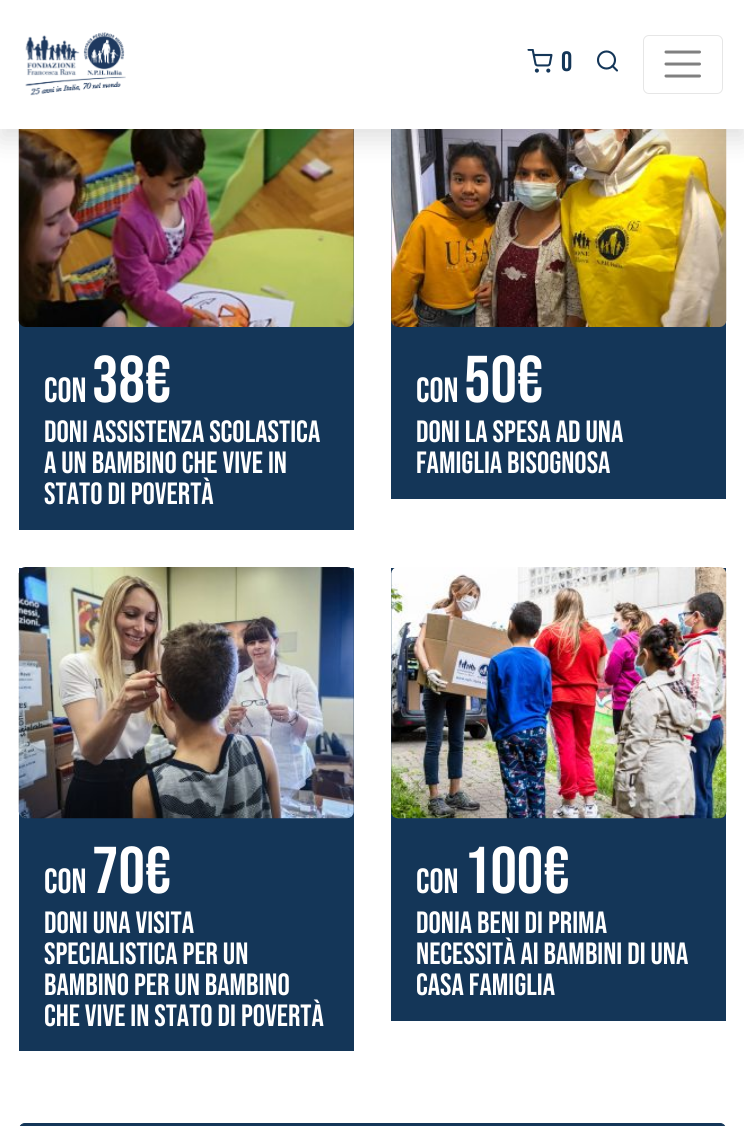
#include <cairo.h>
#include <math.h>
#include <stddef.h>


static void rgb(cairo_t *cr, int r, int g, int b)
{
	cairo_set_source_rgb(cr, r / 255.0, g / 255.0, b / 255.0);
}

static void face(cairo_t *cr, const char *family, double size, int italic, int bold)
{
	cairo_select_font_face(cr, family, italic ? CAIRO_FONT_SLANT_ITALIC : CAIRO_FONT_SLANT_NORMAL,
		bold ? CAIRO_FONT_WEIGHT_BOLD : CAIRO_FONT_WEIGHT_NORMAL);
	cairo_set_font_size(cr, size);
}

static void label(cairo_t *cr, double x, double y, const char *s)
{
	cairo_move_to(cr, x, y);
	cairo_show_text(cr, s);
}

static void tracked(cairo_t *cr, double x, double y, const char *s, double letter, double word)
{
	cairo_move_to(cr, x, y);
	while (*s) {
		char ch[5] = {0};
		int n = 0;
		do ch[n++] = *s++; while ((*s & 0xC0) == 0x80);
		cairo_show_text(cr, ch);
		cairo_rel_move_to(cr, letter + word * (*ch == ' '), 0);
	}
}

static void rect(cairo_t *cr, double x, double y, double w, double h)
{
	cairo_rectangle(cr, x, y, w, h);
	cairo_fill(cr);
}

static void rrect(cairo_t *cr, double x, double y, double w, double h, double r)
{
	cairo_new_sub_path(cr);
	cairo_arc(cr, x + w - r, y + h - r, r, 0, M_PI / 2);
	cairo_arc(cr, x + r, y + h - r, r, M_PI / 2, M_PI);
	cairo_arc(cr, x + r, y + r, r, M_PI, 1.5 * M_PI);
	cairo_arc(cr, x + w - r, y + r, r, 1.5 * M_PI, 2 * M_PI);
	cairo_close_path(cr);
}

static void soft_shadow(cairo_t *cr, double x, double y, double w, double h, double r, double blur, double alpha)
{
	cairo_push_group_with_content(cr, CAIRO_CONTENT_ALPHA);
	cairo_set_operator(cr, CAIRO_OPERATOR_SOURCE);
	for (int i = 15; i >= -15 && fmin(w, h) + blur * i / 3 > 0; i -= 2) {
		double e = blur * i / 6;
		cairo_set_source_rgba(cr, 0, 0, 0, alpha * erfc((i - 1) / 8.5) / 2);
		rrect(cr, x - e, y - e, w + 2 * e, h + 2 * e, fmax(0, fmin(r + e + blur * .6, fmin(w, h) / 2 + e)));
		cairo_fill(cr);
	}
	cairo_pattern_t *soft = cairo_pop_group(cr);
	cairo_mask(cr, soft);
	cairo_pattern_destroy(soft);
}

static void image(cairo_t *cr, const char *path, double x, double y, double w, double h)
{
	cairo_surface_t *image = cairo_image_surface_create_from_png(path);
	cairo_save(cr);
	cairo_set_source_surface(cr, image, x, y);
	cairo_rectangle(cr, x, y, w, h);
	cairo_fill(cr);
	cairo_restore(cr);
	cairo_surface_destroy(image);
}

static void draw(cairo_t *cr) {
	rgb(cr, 255, 255, 255);
	cairo_paint(cr);
	rgb(cr, 20, 54, 88);
	rect(cr, 19, 129, 335, 401);
	image(cr, "image2.png", 18, 129, 336, 198);
	rect(cr, 391, 129, 335, 370);
	image(cr, "image3.png", 391, 129, 336, 198);
	rgb(cr, 0, 0, 0);
	soft_shadow(cr, 0, 10, 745, 129, 0, 13, 0.13);
	rgb(cr, 255, 255, 255);
	rect(cr, 0, 0, 744, 129);
	image(cr, "image0.png", 25, 32, 101, 64);
	image(cr, "image1.png", 527, 49, 26, 24);
	face(cr, "Bebas Neue", 28, 0, 0);
	rgb(cr, 20, 54, 88);
	tracked(cr, 561, 71, "0", 1, 0);
	cairo_new_path(cr);
	cairo_arc(cr, 606.5, 60, 8.5, 0, 2 * M_PI);
	cairo_set_line_width(cr, 2.1);
	cairo_stroke(cr);
	cairo_new_path(cr);
	cairo_move_to(cr, 617, 70.5);
	cairo_line_to(cr, 612.5, 66);
	cairo_set_line_cap(cr, CAIRO_LINE_CAP_ROUND);
	cairo_set_line_join(cr, CAIRO_LINE_JOIN_ROUND);
	cairo_stroke(cr);
	rrect(cr, 643.5, 35.5, 79, 58, 5.5);
	rgb(cr, 230, 230, 230);
	cairo_set_line_width(cr, 1);
	cairo_set_line_cap(cr, CAIRO_LINE_CAP_BUTT);
	cairo_set_line_join(cr, CAIRO_LINE_JOIN_MITER);
	cairo_stroke(cr);
	cairo_new_path(cr);
	cairo_move_to(cr, 666, 52);
	cairo_line_to(cr, 699.5, 52);
	cairo_move_to(cr, 666, 64);
	cairo_line_to(cr, 699.5, 64);
	cairo_move_to(cr, 666, 76);
	cairo_line_to(cr, 699.5, 76);
	rgb(cr, 128, 128, 128);
	cairo_set_line_width(cr, 3);
	cairo_set_line_cap(cr, CAIRO_LINE_CAP_ROUND);
	cairo_stroke(cr);
	face(cr, "Bebas Neue", 35, 0, 0);
	rgb(cr, 255, 255, 255);
	label(cr, 44, 402, "CON");
	face(cr, "Bebas Neue", 66, 0, 0);
	label(cr, 92, 402, "38€");
	face(cr, "Bebas Neue", 30.75, 0, 0);
	label(cr, 44, 442, "doni assistenza scolastica");
	label(cr, 44, 473, "a un bambino che vive in");
	label(cr, 44, 504, "stato di povertà");
	face(cr, "Bebas Neue", 35, 0, 0);
	label(cr, 416, 402, "CON");
	face(cr, "Bebas Neue", 66, 0, 0);
	label(cr, 464, 402, "50€");
	face(cr, "Bebas Neue", 30.75, 0, 0);
	label(cr, 416, 442, "doni la spesa ad una");
	label(cr, 416, 473, "famiglia bisognosa");
	rgb(cr, 20, 54, 88);
	rect(cr, 19, 568, 335, 483);
	image(cr, "image4.png", 18, 567, 336, 252);
	face(cr, "Bebas Neue", 35, 0, 0);
	rgb(cr, 255, 255, 255);
	label(cr, 44, 893, "CON");
	face(cr, "Bebas Neue", 66, 0, 0);
	label(cr, 92, 893, "70€");
	face(cr, "Bebas Neue", 30.75, 0, 0);
	label(cr, 44, 933, "doni una visita");
	label(cr, 44, 964, "specialistica per un");
	label(cr, 44, 995, "bambino per un bambino");
	label(cr, 44, 1026, "che vive in stato di povertà");
	rgb(cr, 20, 54, 88);
	rect(cr, 391, 568, 335, 453);
	image(cr, "image5.png", 391, 567, 336, 252);
	face(cr, "Bebas Neue", 35, 0, 0);
	rgb(cr, 255, 255, 255);
	label(cr, 416, 893, "CON");
	face(cr, "Bebas Neue", 66, 0, 0);
	label(cr, 464, 893, "100€");
	face(cr, "Bebas Neue", 30.75, 0, 0);
	label(cr, 416, 933, "donia beni di prima");
	label(cr, 416, 964, "necessità ai bambini di una");
	label(cr, 416, 995, "Casa Famiglia");
	rgb(cr, 20, 54, 88);
	rrect(cr, 19.5, 1123.5, 706, 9, 5.5);
	cairo_fill_preserve(cr);
	cairo_set_line_width(cr, 1);
	cairo_set_line_cap(cr, CAIRO_LINE_CAP_BUTT);
	cairo_stroke(cr);
}

int main(void) {
	cairo_surface_t *surface = cairo_image_surface_create(CAIRO_FORMAT_RGB24, 744, 1126);
	cairo_t *cr = cairo_create(surface);
	cairo_font_options_t *options = cairo_font_options_create();
	cairo_font_options_set_hint_metrics(options, CAIRO_HINT_METRICS_OFF);
	cairo_font_options_set_hint_style(options, CAIRO_HINT_STYLE_NONE);
	cairo_set_font_options(cr, options);
	cairo_set_miter_limit(cr, 4);
	draw(cr);
	cairo_surface_write_to_png(surface, "render.png");
	cairo_font_options_destroy(options);
	cairo_destroy(cr);
	cairo_surface_destroy(surface);
	return 0;
}
